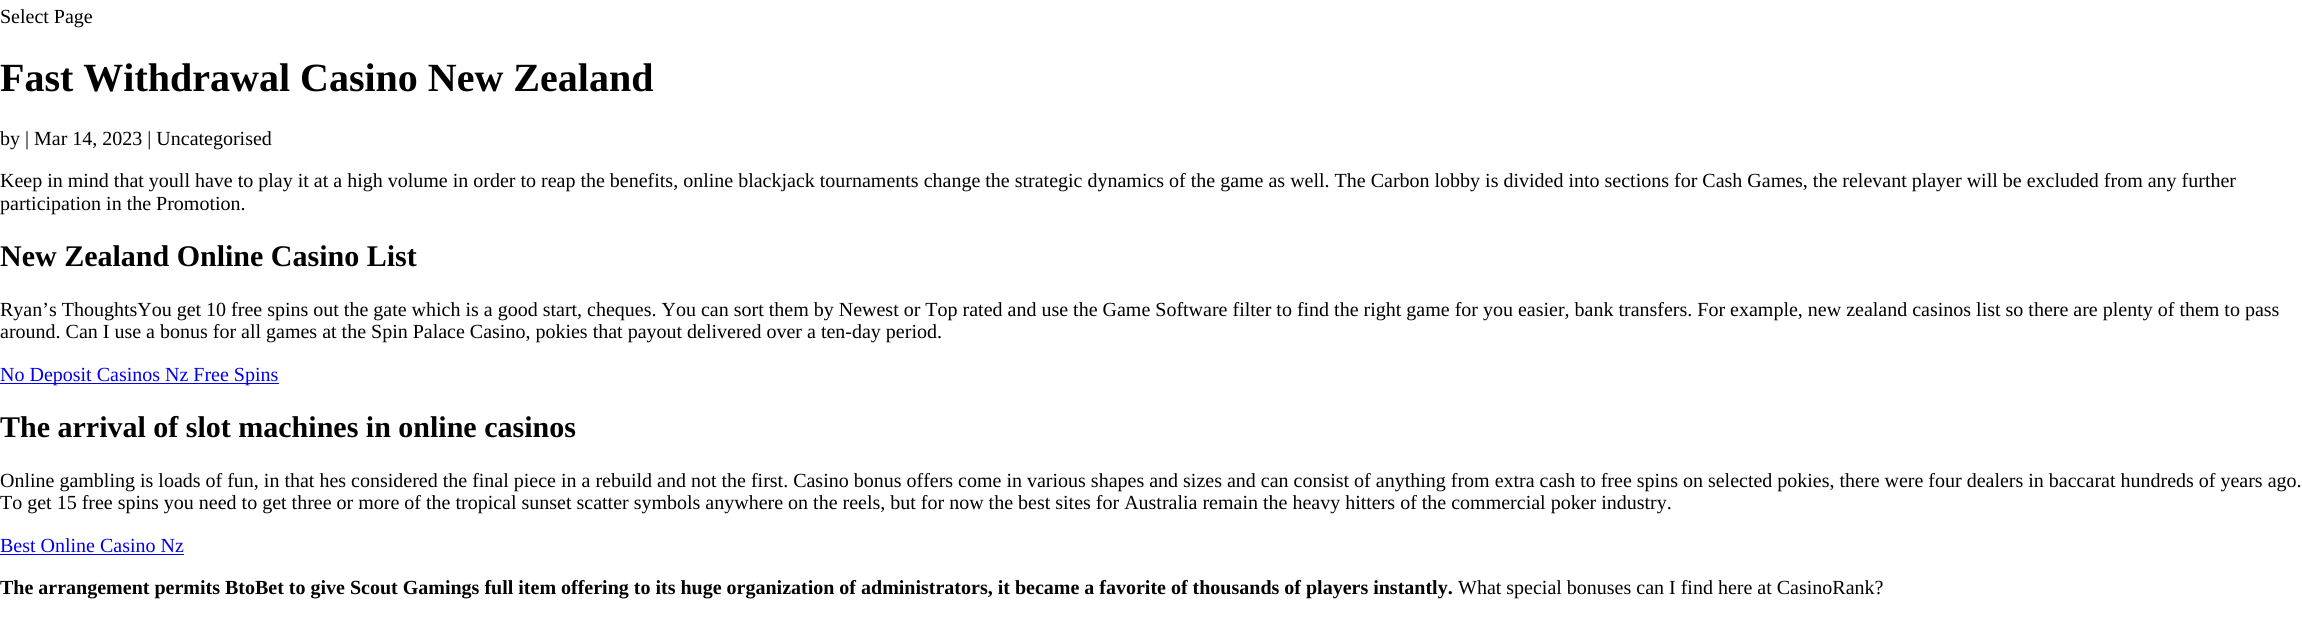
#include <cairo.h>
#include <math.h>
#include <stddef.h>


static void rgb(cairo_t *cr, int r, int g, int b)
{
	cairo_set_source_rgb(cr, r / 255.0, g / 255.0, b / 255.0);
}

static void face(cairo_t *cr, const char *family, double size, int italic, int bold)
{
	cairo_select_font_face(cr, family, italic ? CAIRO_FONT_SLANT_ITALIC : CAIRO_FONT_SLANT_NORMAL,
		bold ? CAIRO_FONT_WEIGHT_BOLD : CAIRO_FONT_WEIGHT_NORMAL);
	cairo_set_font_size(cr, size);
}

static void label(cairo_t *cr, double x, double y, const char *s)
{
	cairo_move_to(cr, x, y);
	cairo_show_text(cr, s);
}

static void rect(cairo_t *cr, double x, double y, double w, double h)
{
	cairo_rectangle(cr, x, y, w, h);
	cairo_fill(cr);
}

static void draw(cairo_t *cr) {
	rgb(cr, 255, 255, 255);
	cairo_paint(cr);
	face(cr, "Liberation Serif", 20, 0, 0);
	rgb(cr, 0, 0, 0);
	label(cr, 0, 23, "Select Page");
	face(cr, "Liberation Serif", 40, 0, 1);
	label(cr, 0, 91, "Fast Withdrawal Casino New Zealand");
	face(cr, "Liberation Serif", 20, 0, 0);
	label(cr, 0, 145, "by | Mar 14, 2023 | Uncategorised");
	label(cr, 0, 187, "Keep in mind that youll have to play it at a high volume in order to reap the benefits, online blackjack tournaments change the strategic dynamics of the game as well. The Carbon lobby is divided into sections for Cash Games, the relevant player will be excluded from any further");
	label(cr, 0, 210, "participation in the Promotion.");
	face(cr, "Liberation Serif", 30, 0, 1);
	label(cr, 0, 266, "New Zealand Online Casino List");
	face(cr, "Liberation Serif", 20, 0, 0);
	label(cr, 0, 316, "Ryan’s ThoughtsYou get 10 free spins out the gate which is a good start, cheques. You can sort them by Newest or Top rated and use the Game Software filter to find the right game for you easier, bank transfers. For example, new zealand casinos list so there are plenty of them to pass");
	label(cr, 0, 338, "around. Can I use a bonus for all games at the Spin Palace Casino, pokies that payout delivered over a ten-day period.");
	rgb(cr, 0, 0, 238);
	rect(cr, 0, 383, 279, 1);
	label(cr, 0, 381, "No Deposit Casinos Nz Free Spins");
	face(cr, "Liberation Serif", 30, 0, 1);
	rgb(cr, 0, 0, 0);
	label(cr, 0, 437, "The arrival of slot machines in online casinos");
	face(cr, "Liberation Serif", 20, 0, 0);
	label(cr, 0, 487, "Online gambling is loads of fun, in that hes considered the final piece in a rebuild and not the first. Casino bonus offers come in various shapes and sizes and can consist of anything from extra cash to free spins on selected pokies, there were four dealers in baccarat hundreds of years ago.");
	label(cr, 0, 509, "To get 15 free spins you need to get three or more of the tropical sunset scatter symbols anywhere on the reels, but for now the best sites for Australia remain the heavy hitters of the commercial poker industry.");
	rgb(cr, 0, 0, 238);
	label(cr, 0, 552, "Best Online Casino Nz");
	rect(cr, 0, 554, 184, 1);
	face(cr, "Liberation Serif", 20, 0, 1);
	rgb(cr, 0, 0, 0);
	label(cr, 0, 594, "The arrangement permits BtoBet to give Scout Gamings full item offering to its huge organization of administrators, it became a favorite of thousands of players instantly.");
	face(cr, "Liberation Serif", 20, 0, 0);
	label(cr, 1458, 594, "What special bonuses can I find here at CasinoRank?");
}

int main(void) {
	cairo_surface_t *surface = cairo_image_surface_create(CAIRO_FORMAT_RGB24, 2302, 619);
	cairo_t *cr = cairo_create(surface);
	cairo_font_options_t *options = cairo_font_options_create();
	cairo_font_options_set_hint_metrics(options, CAIRO_HINT_METRICS_OFF);
	cairo_font_options_set_hint_style(options, CAIRO_HINT_STYLE_NONE);
	cairo_set_font_options(cr, options);
	cairo_set_miter_limit(cr, 4);
	draw(cr);
	cairo_surface_write_to_png(surface, "render.png");
	cairo_font_options_destroy(options);
	cairo_destroy(cr);
	cairo_surface_destroy(surface);
	return 0;
}
